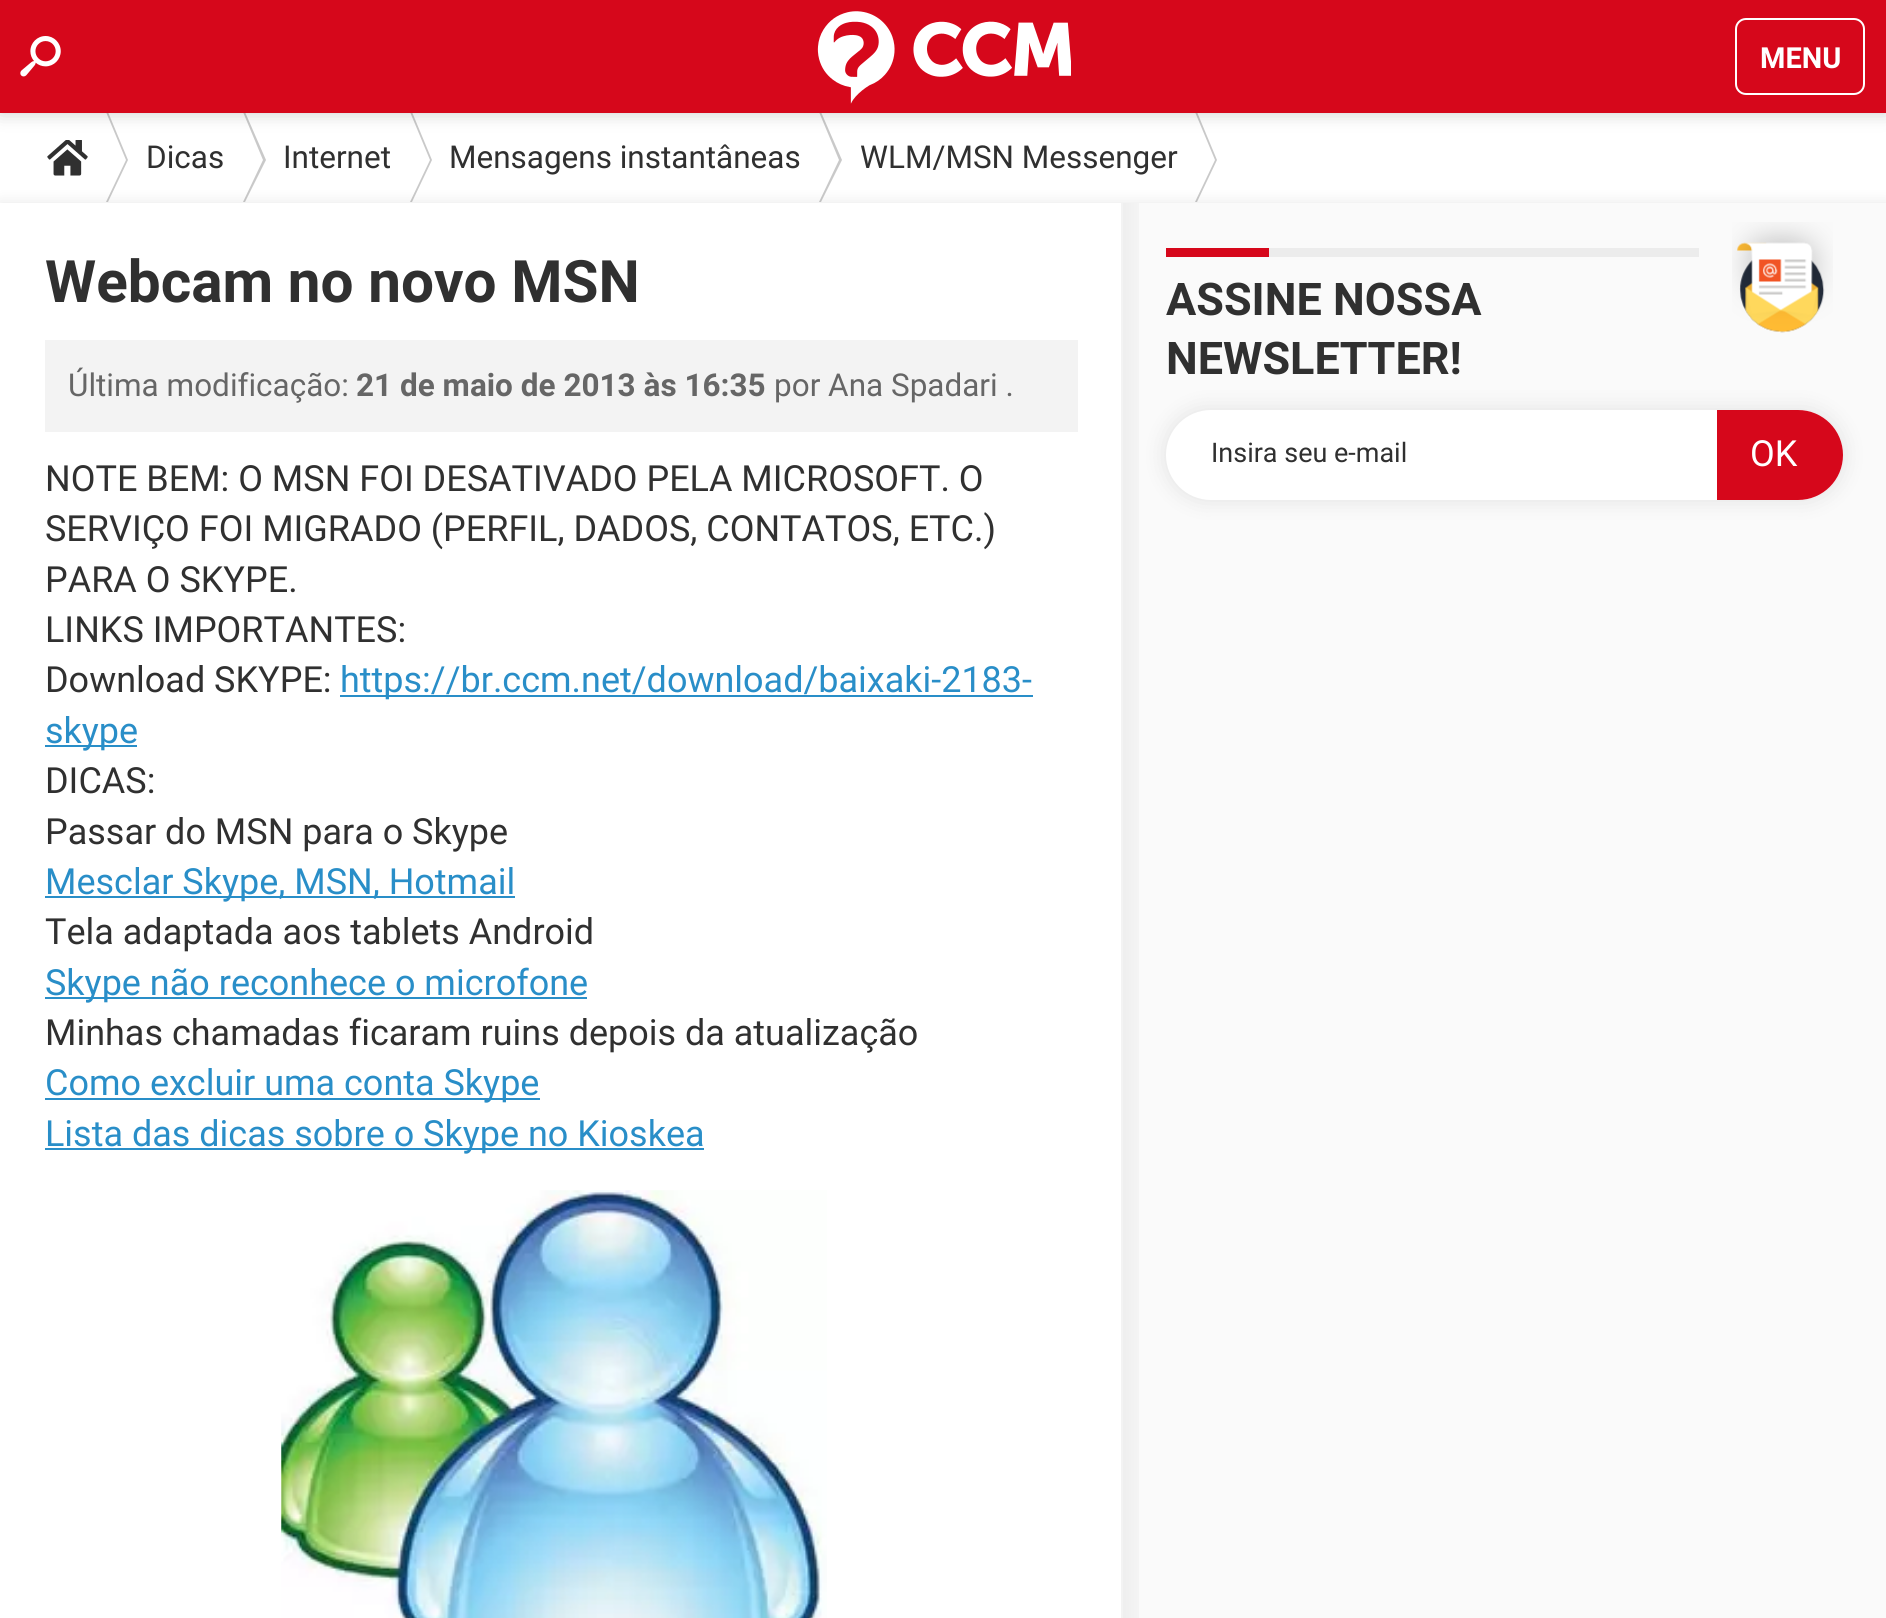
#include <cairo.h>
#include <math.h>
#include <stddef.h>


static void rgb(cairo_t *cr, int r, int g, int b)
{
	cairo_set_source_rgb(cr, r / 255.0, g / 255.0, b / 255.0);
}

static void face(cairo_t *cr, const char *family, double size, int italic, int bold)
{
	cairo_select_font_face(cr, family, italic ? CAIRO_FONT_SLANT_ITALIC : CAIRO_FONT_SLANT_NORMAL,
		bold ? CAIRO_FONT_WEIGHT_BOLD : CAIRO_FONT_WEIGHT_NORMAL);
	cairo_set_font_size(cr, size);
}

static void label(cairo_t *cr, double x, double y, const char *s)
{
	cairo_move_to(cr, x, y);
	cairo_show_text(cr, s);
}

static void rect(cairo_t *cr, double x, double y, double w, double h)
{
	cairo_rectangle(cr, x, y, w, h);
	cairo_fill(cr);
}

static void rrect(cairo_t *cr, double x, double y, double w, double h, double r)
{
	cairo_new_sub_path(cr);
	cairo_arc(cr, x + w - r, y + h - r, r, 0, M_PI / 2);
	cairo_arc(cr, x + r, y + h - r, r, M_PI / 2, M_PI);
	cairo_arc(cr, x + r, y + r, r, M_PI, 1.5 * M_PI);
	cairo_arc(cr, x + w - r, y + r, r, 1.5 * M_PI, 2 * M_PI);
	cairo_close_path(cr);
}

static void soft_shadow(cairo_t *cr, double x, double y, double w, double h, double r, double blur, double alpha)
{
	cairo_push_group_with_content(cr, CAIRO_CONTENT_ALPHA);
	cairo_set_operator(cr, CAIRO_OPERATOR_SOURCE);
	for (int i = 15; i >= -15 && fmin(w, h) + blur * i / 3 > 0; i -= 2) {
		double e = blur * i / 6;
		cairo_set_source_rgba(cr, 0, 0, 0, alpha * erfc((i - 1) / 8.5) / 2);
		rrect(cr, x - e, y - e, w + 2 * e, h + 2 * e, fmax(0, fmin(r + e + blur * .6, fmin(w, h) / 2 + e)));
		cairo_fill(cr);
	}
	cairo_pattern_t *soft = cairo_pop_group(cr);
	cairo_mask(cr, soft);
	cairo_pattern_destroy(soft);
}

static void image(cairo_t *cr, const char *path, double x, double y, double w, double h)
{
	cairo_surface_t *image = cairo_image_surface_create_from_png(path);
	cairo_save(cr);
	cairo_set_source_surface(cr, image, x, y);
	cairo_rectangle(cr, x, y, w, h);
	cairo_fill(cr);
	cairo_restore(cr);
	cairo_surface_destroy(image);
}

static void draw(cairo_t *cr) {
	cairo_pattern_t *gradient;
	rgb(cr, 255, 255, 255);
	cairo_paint(cr);
	image(cr, "image2.png", 47, 140, 41, 36);
	rgb(cr, 201, 201, 201);
	cairo_set_fill_rule(cr, CAIRO_FILL_RULE_EVEN_ODD);
	cairo_new_path(cr);
	cairo_move_to(cr, 106, 112);
	cairo_line_to(cr, 108, 112);
	cairo_line_to(cr, 128, 160);
	cairo_line_to(cr, 108, 202);
	cairo_line_to(cr, 106, 202);
	cairo_line_to(cr, 126, 160);
	cairo_close_path(cr);
	cairo_fill(cr);
	cairo_new_path(cr);
	cairo_move_to(cr, 243, 112);
	cairo_line_to(cr, 245, 112);
	cairo_line_to(cr, 266, 160);
	cairo_line_to(cr, 245, 202);
	cairo_line_to(cr, 243, 202);
	cairo_line_to(cr, 263, 160);
	cairo_close_path(cr);
	cairo_fill(cr);
	cairo_new_path(cr);
	cairo_move_to(cr, 410, 112);
	cairo_line_to(cr, 412, 112);
	cairo_line_to(cr, 432, 160);
	cairo_line_to(cr, 412, 202);
	cairo_line_to(cr, 410, 202);
	cairo_line_to(cr, 430, 160);
	cairo_close_path(cr);
	cairo_fill(cr);
	cairo_new_path(cr);
	cairo_move_to(cr, 819, 112);
	cairo_line_to(cr, 821, 112);
	cairo_line_to(cr, 842, 160);
	cairo_line_to(cr, 821, 202);
	cairo_line_to(cr, 819, 202);
	cairo_line_to(cr, 839, 160);
	cairo_close_path(cr);
	cairo_fill(cr);
	cairo_new_path(cr);
	cairo_move_to(cr, 1195, 112);
	cairo_line_to(cr, 1197, 112);
	cairo_line_to(cr, 1217, 160);
	cairo_line_to(cr, 1197, 202);
	cairo_line_to(cr, 1195, 202);
	cairo_line_to(cr, 1215, 160);
	cairo_close_path(cr);
	cairo_fill(cr);
	rgb(cr, 0, 0, 0);
	soft_shadow(cr, 0, 0, 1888, 113, 0, 9, 0.2);
	rgb(cr, 214, 7, 27);
	rect(cr, 0, 0, 1886, 113);
	image(cr, "image0.png", 20, 36, 41, 41);
	image(cr, "image1.png", 817, 11, 254, 93);
	rrect(cr, 1736, 19, 128, 75, 10);
	rgb(cr, 255, 255, 255);
	cairo_stroke(cr);
	face(cr, "Roboto", 29, 0, 1);
	label(cr, 1760, 68, "MENU");
	face(cr, "Roboto", 31.5, 0, 0);
	rgb(cr, 48, 48, 48);
	label(cr, 146, 168, "Dicas");
	label(cr, 283, 168, "Internet");
	label(cr, 449, 168, "Mensagens instantâneas");
	label(cr, 860, 168, "WLM/MSN Messenger");
	rgb(cr, 0, 0, 0);
	soft_shadow(cr, 0, 203, 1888, 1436, 0, 7, 0.1);
	rgb(cr, 255, 255, 255);
	rect(cr, 0, 203, 1123, 1415);
	face(cr, "Roboto", 58.5, 0, 1);
	rgb(cr, 48, 48, 48);
	label(cr, 45, 302, "Webcam no novo MSN");
	rgb(cr, 243, 243, 243);
	rect(cr, 45, 340, 1033, 92);
	face(cr, "Roboto", 31.5, 0, 0);
	rgb(cr, 102, 102, 102);
	label(cr, 68, 396, "Última modificação:");
	face(cr, "Roboto", 31.5, 0, 1);
	label(cr, 356, 396, "21 de maio de 2013 às 16:35");
	face(cr, "Roboto", 31.5, 0, 0);
	label(cr, 774, 396, "por Ana Spadari .");
	face(cr, "Roboto", 36, 0, 0);
	rgb(cr, 48, 48, 48);
	label(cr, 45, 491, "NOTE BEM: O MSN FOI DESATIVADO PELA MICROSOFT. O");
	label(cr, 45, 541, "SERVIÇO FOI MIGRADO (PERFIL, DADOS, CONTATOS, ETC.)");
	label(cr, 45, 592, "PARA O SKYPE.");
	label(cr, 45, 642, "LINKS IMPORTANTES:");
	label(cr, 45, 692, "Download SKYPE:");
	rgb(cr, 41, 142, 200);
	rect(cr, 340, 695, 693, 2);
	label(cr, 340, 692, "https://br.ccm.net/download/baixaki-2183-");
	rect(cr, 45, 745, 92, 2);
	label(cr, 45, 743, "skype");
	rgb(cr, 48, 48, 48);
	label(cr, 45, 793, "DICAS:");
	label(cr, 45, 844, "Passar do MSN para o Skype");
	rgb(cr, 41, 142, 200);
	rect(cr, 45, 896, 470, 2);
	label(cr, 45, 894, "Mesclar Skype, MSN, Hotmail");
	rgb(cr, 48, 48, 48);
	label(cr, 45, 944, "Tela adaptada aos tablets Android");
	rgb(cr, 41, 142, 200);
	rect(cr, 45, 997, 542, 2);
	label(cr, 45, 995, "Skype não reconhece o microfone");
	rgb(cr, 48, 48, 48);
	label(cr, 45, 1045, "Minhas chamadas ficaram ruins depois da atualização");
	rgb(cr, 41, 142, 200);
	rect(cr, 45, 1098, 495, 2);
	label(cr, 45, 1095, "Como excluir uma conta Skype");
	rect(cr, 45, 1148, 659, 2);
	label(cr, 45, 1146, "Lista das dicas sobre o Skype no Kioskea");
	image(cr, "image3.png", 281, 1190, 546, 428);
	rgb(cr, 250, 250, 250);
	rect(cr, 1123, 203, 763, 1415);
	gradient = cairo_pattern_create_linear(1120, 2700, 1154, 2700);
	cairo_pattern_add_color_stop_rgba(gradient, 0, 0, 0, 0, 0.05);
	cairo_pattern_add_color_stop_rgba(gradient, 1, 0, 0, 0, 0);
	cairo_set_source(cr, gradient);
	cairo_pattern_destroy(gradient);
	rect(cr, 1121, 203, 18, 1415);
	rgb(cr, 236, 236, 236);
	rect(cr, 1269, 248, 430, 9);
	rgb(cr, 214, 7, 27);
	rect(cr, 1166, 248, 103, 9);
	face(cr, "Roboto", 45, 0, 1);
	rgb(cr, 48, 48, 48);
	label(cr, 1166, 315, "ASSINE NOSSA");
	label(cr, 1166, 374, "NEWSLETTER!");
	image(cr, "image4.png", 1732, 222, 101, 111);
	rgb(cr, 0, 0, 0);
	soft_shadow(cr, 1166, 410, 677, 90, 45, 11, 0.1);
	rgb(cr, 255, 255, 255);
	rrect(cr, 1166, 410, 677, 90, 45);
	cairo_fill(cr);
	face(cr, "Roboto", 27, 0, 0);
	rgb(cr, 48, 48, 48);
	label(cr, 1211, 462, "Insira seu e-mail");
	rgb(cr, 214, 7, 27);
	cairo_new_path(cr);
	cairo_move_to(cr, 1719.5, 412.5);
	cairo_line_to(cr, 1798, 412.5);
	cairo_curve_to(cr, 1821.5, 412.5, 1840.5, 431.5, 1840.5, 455);
	cairo_curve_to(cr, 1840.5, 478.5, 1821.5, 497.5, 1798, 497.5);
	cairo_line_to(cr, 1719.5, 497.5);
	cairo_close_path(cr);
	cairo_fill_preserve(cr);
	cairo_set_line_width(cr, 5);
	cairo_stroke(cr);
	face(cr, "Roboto", 36, 0, 0);
	rgb(cr, 255, 255, 255);
	label(cr, 1750, 466, "OK");
}

int main(void) {
	cairo_surface_t *surface = cairo_image_surface_create(CAIRO_FORMAT_RGB24, 1886, 1618);
	cairo_t *cr = cairo_create(surface);
	cairo_font_options_t *options = cairo_font_options_create();
	cairo_font_options_set_hint_metrics(options, CAIRO_HINT_METRICS_OFF);
	cairo_font_options_set_hint_style(options, CAIRO_HINT_STYLE_NONE);
	cairo_set_font_options(cr, options);
	cairo_set_miter_limit(cr, 4);
	draw(cr);
	cairo_surface_write_to_png(surface, "render.png");
	cairo_font_options_destroy(options);
	cairo_destroy(cr);
	cairo_surface_destroy(surface);
	return 0;
}
